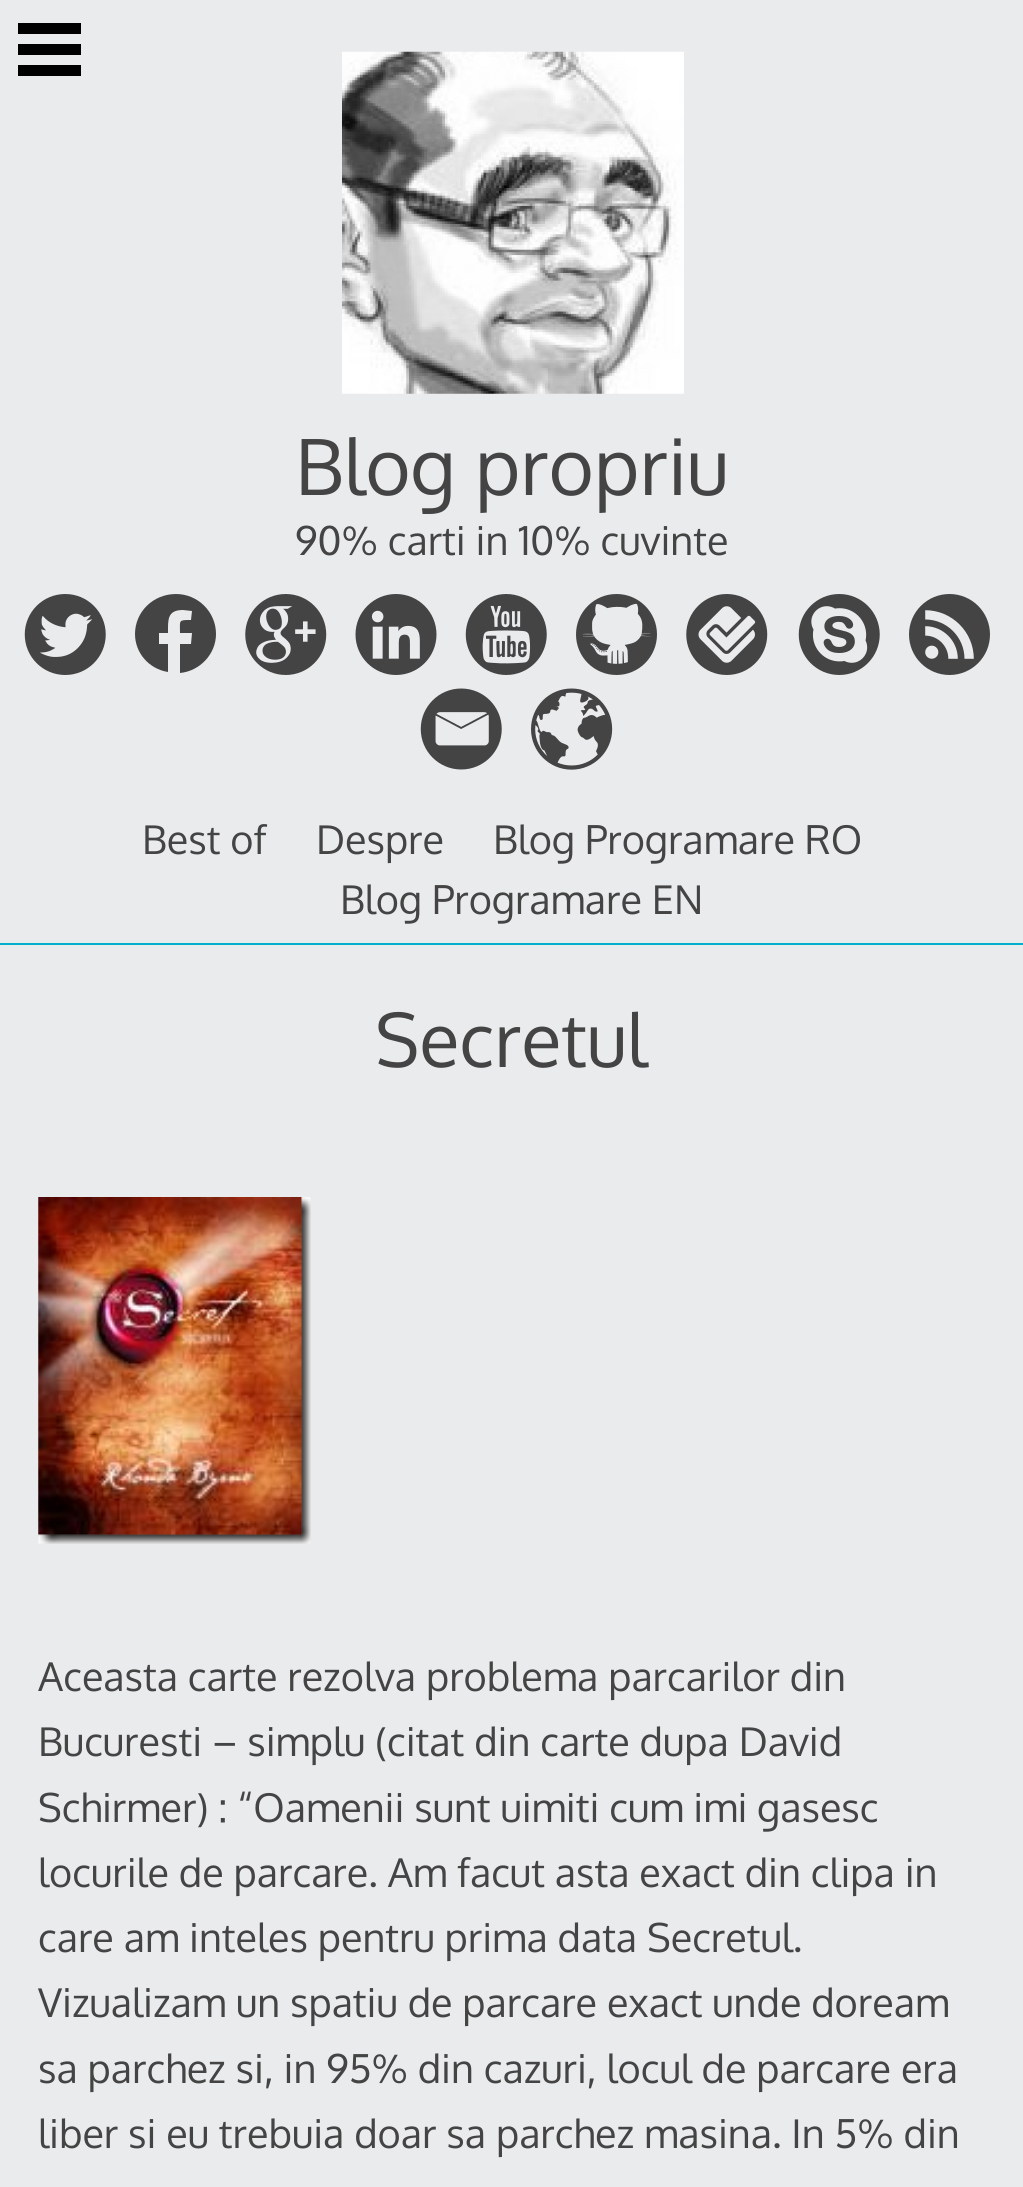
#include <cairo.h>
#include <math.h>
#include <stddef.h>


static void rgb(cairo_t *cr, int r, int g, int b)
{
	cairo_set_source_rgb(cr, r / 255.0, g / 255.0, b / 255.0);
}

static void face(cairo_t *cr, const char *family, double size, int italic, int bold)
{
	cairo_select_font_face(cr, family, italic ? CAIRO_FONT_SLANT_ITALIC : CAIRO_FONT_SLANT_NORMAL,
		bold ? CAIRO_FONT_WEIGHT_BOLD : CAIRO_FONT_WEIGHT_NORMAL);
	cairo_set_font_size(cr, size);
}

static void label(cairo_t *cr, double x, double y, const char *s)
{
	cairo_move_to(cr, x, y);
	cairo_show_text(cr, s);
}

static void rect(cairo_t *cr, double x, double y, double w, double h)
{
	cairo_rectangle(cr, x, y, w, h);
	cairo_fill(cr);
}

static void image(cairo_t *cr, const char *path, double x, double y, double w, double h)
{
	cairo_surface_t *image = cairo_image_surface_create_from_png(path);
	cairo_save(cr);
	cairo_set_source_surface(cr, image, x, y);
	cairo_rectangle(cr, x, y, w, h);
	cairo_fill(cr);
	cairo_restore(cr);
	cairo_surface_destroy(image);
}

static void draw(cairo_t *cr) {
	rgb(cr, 233, 235, 237);
	cairo_paint(cr);
	rgb(cr, 0, 0, 0);
	rect(cr, 18, 23, 63, 11);
	rect(cr, 18, 44, 63, 11);
	rect(cr, 18, 65, 63, 11);
	rgb(cr, 0, 176, 204);
	rect(cr, 0, 943, 1023, 2);
	image(cr, "image0.png", 342, 51, 342, 343);
	face(cr, "Oxygen", 77.5, 0, 0);
	rgb(cr, 68, 68, 68);
	label(cr, 295, 495, "Blog propriu");
	face(cr, "Oxygen", 39.6, 0, 0);
	label(cr, 295, 555, "90% carti in 10% cuvinte");
	image(cr, "image1.png", 24, 594, 82, 81);
	cairo_set_fill_rule(cr, CAIRO_FILL_RULE_EVEN_ODD);
	cairo_new_path(cr);
	cairo_move_to(cr, 176, 594);
	cairo_curve_to(cr, 198, 594, 216, 612, 216, 634);
	cairo_curve_to(cr, 216, 654, 200, 671, 180, 673);
	cairo_line_to(cr, 180, 644);
	cairo_line_to(cr, 191, 644);
	cairo_line_to(cr, 192, 633);
	cairo_line_to(cr, 180, 633);
	cairo_curve_to(cr, 180, 620, 178, 620, 191, 620);
	cairo_line_to(cr, 192, 611);
	cairo_line_to(cr, 183, 610);
	cairo_curve_to(cr, 167, 610, 168, 620, 168, 633);
	cairo_line_to(cr, 159, 633);
	cairo_line_to(cr, 159, 644);
	cairo_line_to(cr, 168, 644);
	cairo_line_to(cr, 168, 672);
	cairo_curve_to(cr, 149, 669, 135, 653, 135, 634);
	cairo_curve_to(cr, 135, 612, 153, 594, 176, 594);
	cairo_close_path(cr);
	cairo_fill(cr);
	image(cr, "image2.png", 245, 594, 82, 81);
	image(cr, "image3.png", 355, 594, 82, 81);
	image(cr, "image4.png", 465, 594, 82, 81);
	image(cr, "image5.png", 576, 594, 81, 81);
	image(cr, "image6.png", 686, 594, 82, 81);
	image(cr, "image7.png", 798, 594, 82, 81);
	image(cr, "image8.png", 909, 594, 81, 81);
	image(cr, "image9.png", 420, 688, 82, 82);
	image(cr, "image10.png", 531, 688, 82, 82);
	label(cr, 142, 854, "Best of");
	label(cr, 316, 854, "Despre");
	label(cr, 493, 854, "Blog Programare RO");
	label(cr, 340, 914, "Blog Programare EN");
	face(cr, "Oxygen", 74, 0, 0);
	label(cr, 375, 1067, "Secretul");
	image(cr, "image11.png", 38, 1197, 273, 347);
	face(cr, "Oxygen", 39.6, 0, 0);
	label(cr, 38, 1691, "Aceasta carte rezolva problema parcarilor din");
	label(cr, 38, 1756, "Bucuresti – simplu (citat din carte dupa David");
	label(cr, 38, 1822, "Schirmer) : “Oamenii sunt uimiti cum imi gasesc");
	label(cr, 38, 1887, "locurile de parcare. Am facut asta exact din clipa in");
	label(cr, 38, 1952, "care am inteles pentru prima data Secretul.");
	label(cr, 38, 2017, "Vizualizam un spatiu de parcare exact unde doream");
	label(cr, 38, 2083, "sa parchez si, in 95% din cazuri, locul de parcare era");
	label(cr, 38, 2148, "liber si eu trebuia doar sa parchez masina. In 5% din");
}

int main(void) {
	cairo_surface_t *surface = cairo_image_surface_create(CAIRO_FORMAT_RGB24, 1023, 2187);
	cairo_t *cr = cairo_create(surface);
	cairo_font_options_t *options = cairo_font_options_create();
	cairo_font_options_set_hint_metrics(options, CAIRO_HINT_METRICS_OFF);
	cairo_font_options_set_hint_style(options, CAIRO_HINT_STYLE_NONE);
	cairo_set_font_options(cr, options);
	cairo_set_miter_limit(cr, 4);
	draw(cr);
	cairo_surface_write_to_png(surface, "render.png");
	cairo_font_options_destroy(options);
	cairo_destroy(cr);
	cairo_surface_destroy(surface);
	return 0;
}
